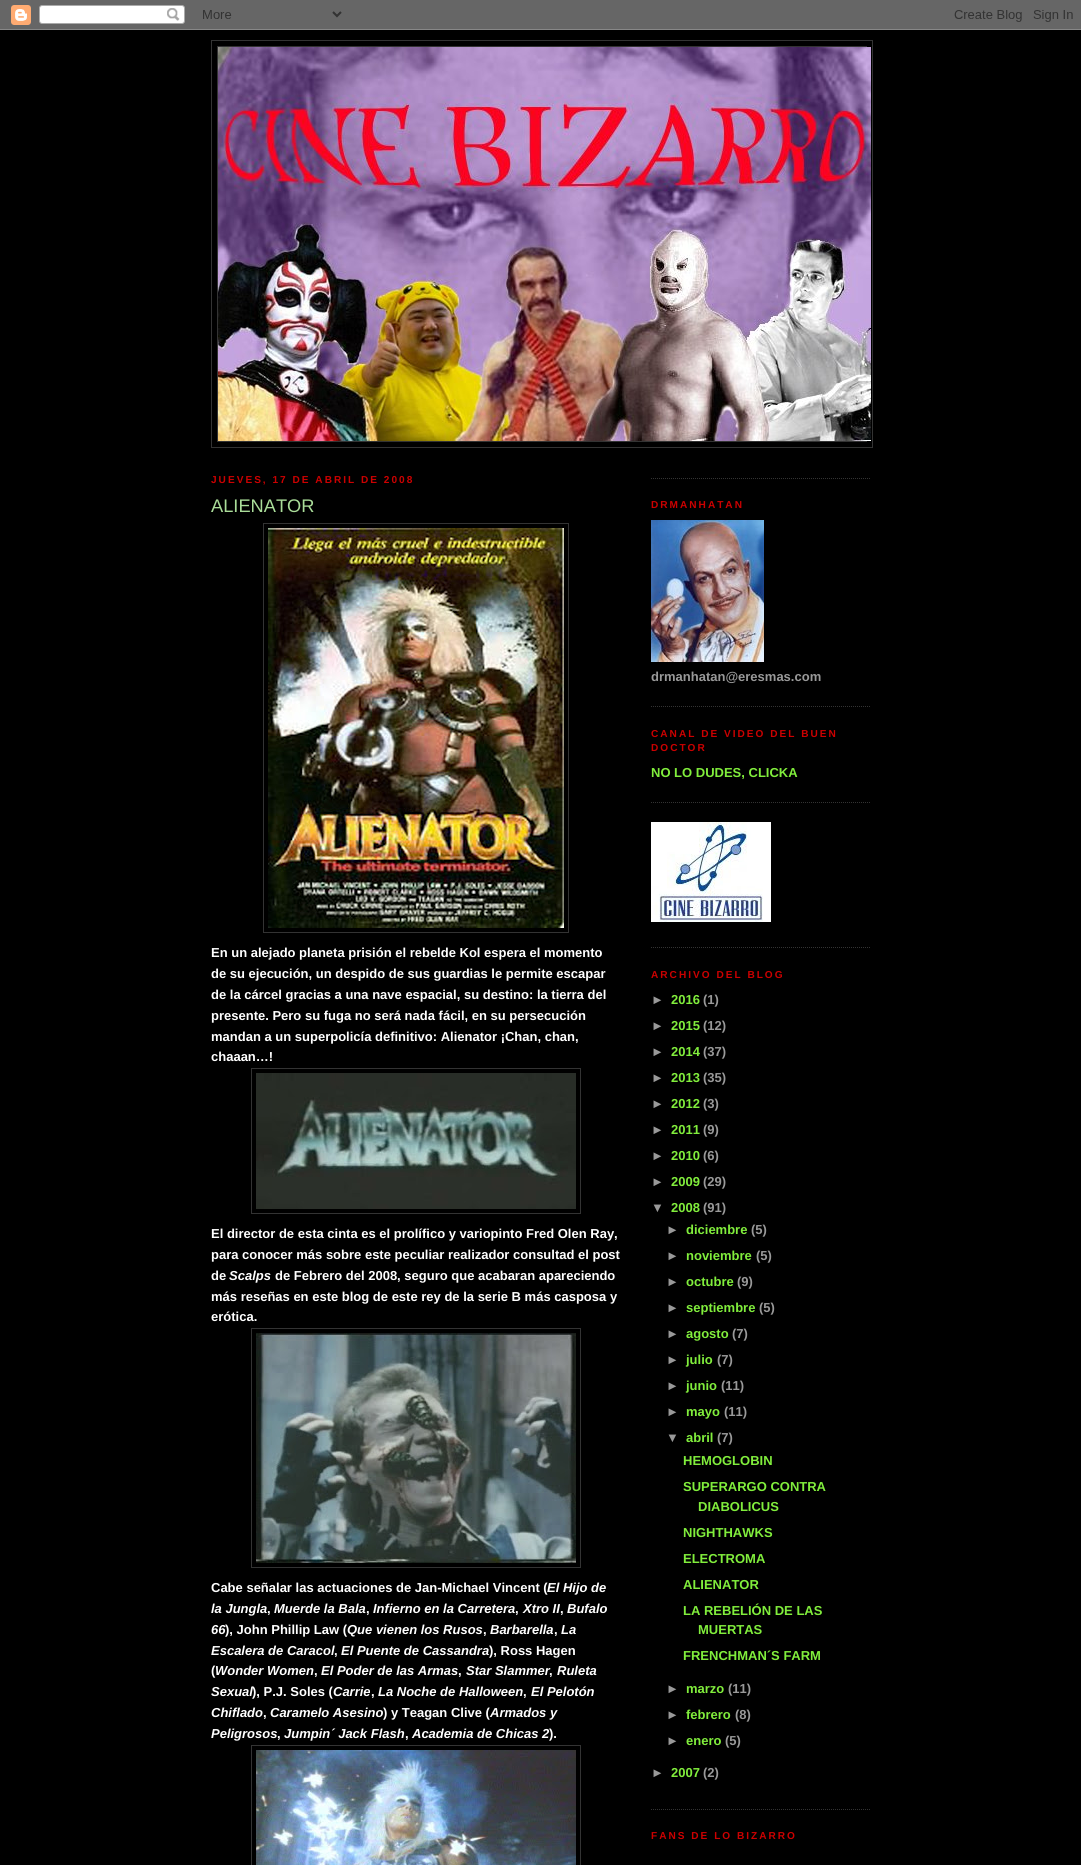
#include <cairo.h>
#include <math.h>
#include <stddef.h>


static void rgb(cairo_t *cr, int r, int g, int b)
{
	cairo_set_source_rgb(cr, r / 255.0, g / 255.0, b / 255.0);
}

static void face(cairo_t *cr, const char *family, double size, int italic, int bold)
{
	cairo_select_font_face(cr, family, italic ? CAIRO_FONT_SLANT_ITALIC : CAIRO_FONT_SLANT_NORMAL,
		bold ? CAIRO_FONT_WEIGHT_BOLD : CAIRO_FONT_WEIGHT_NORMAL);
	cairo_set_font_size(cr, size);
}

static void label(cairo_t *cr, double x, double y, const char *s)
{
	cairo_move_to(cr, x, y);
	cairo_show_text(cr, s);
}

static void tracked(cairo_t *cr, double x, double y, const char *s, double letter, double word)
{
	cairo_move_to(cr, x, y);
	while (*s) {
		char ch[5] = {0};
		int n = 0;
		do ch[n++] = *s++; while ((*s & 0xC0) == 0x80);
		cairo_show_text(cr, ch);
		cairo_rel_move_to(cr, letter + word * (*ch == ' '), 0);
	}
}

static void image(cairo_t *cr, const char *path, double x, double y, double w, double h)
{
	cairo_surface_t *image = cairo_image_surface_create_from_png(path);
	cairo_save(cr);
	cairo_set_source_surface(cr, image, x, y);
	cairo_rectangle(cr, x, y, w, h);
	cairo_fill(cr);
	cairo_restore(cr);
	cairo_surface_destroy(image);
}

static void draw(cairo_t *cr) {
	rgb(cr, 0, 0, 0);
	cairo_paint(cr);
	image(cr, "image0.png", 0, 0, 1081, 30);
	cairo_rectangle(cr, 211.5, 40.5, 661, 407);
	rgb(cr, 51, 51, 51);
	cairo_set_line_width(cr, 1);
	cairo_stroke(cr);
	cairo_rectangle(cr, 217.5, 46.5, 649, 395);
	cairo_stroke(cr);
	image(cr, "image1.png", 218, 47, 653, 394);
	face(cr, "Liberation Sans", 10.1, 0, 1);
	rgb(cr, 204, 0, 0);
	tracked(cr, 211, 483, "JUEVES, 17 DE ABRIL DE 2008", 2, 0);
	face(cr, "Liberation Sans", 18.25, 0, 0);
	rgb(cr, 170, 221, 153);
	label(cr, 211, 512, "ALIENATOR");
	cairo_rectangle(cr, 263.5, 523.5, 305, 409);
	rgb(cr, 51, 51, 51);
	cairo_stroke(cr);
	image(cr, "image2.png", 268, 528, 296, 400);
	face(cr, "Liberation Sans", 13, 0, 1);
	rgb(cr, 255, 255, 255);
	label(cr, 211, 957, "En un alejado planeta prisión el rebelde Kol espera el momento");
	label(cr, 211, 978, "de su ejecución, un despido de sus guardias le permite escapar");
	label(cr, 211, 999, "de la cárcel gracias a una nave espacial, su destino: la tierra del");
	label(cr, 211, 1020, "presente. Pero su fuga no será nada fácil, en su persecución");
	label(cr, 211, 1041, "mandan a un superpolicía definitivo: Alienator ¡Chan, chan,");
	label(cr, 211, 1061, "chaaan…!");
	cairo_rectangle(cr, 251.5, 1068.5, 329, 145);
	rgb(cr, 51, 51, 51);
	cairo_stroke(cr);
	image(cr, "image3.png", 256, 1073, 320, 136);
	rgb(cr, 255, 255, 255);
	label(cr, 211, 1238, "El director de esta cinta es el prolífico y variopinto Fred Olen Ray,");
	label(cr, 211, 1259, "para conocer más sobre este peculiar realizador consultad el post");
	label(cr, 211, 1280, "de");
	face(cr, "Liberation Sans", 13, 1, 1);
	label(cr, 229, 1280, "Scalps");
	face(cr, "Liberation Sans", 13, 0, 1);
	label(cr, 275, 1280, "de Febrero del 2008, seguro que acabaran apareciendo");
	label(cr, 211, 1301, "más reseñas en este blog de este rey de la serie B más casposa y");
	label(cr, 211, 1321, "erótica.");
	cairo_rectangle(cr, 251.5, 1328.5, 329, 239);
	rgb(cr, 51, 51, 51);
	cairo_stroke(cr);
	image(cr, "image4.png", 256, 1333, 320, 230);
	rgb(cr, 255, 255, 255);
	label(cr, 211, 1592, "Cabe señalar las actuaciones de Jan-Michael Vincent (");
	face(cr, "Liberation Sans", 13, 1, 1);
	label(cr, 547, 1592, "El Hijo de");
	label(cr, 211, 1613, "la Jungla");
	face(cr, "Liberation Sans", 13, 0, 1);
	label(cr, 267, 1613, ",");
	face(cr, "Liberation Sans", 13, 1, 1);
	label(cr, 274, 1613, "Muerde la Bala");
	face(cr, "Liberation Sans", 13, 0, 1);
	label(cr, 366, 1613, ",");
	face(cr, "Liberation Sans", 13, 1, 1);
	label(cr, 373, 1613, "Infierno en la Carretera");
	face(cr, "Liberation Sans", 13, 0, 1);
	label(cr, 515, 1613, ",");
	face(cr, "Liberation Sans", 13, 1, 1);
	label(cr, 523, 1613, "Xtro II");
	face(cr, "Liberation Sans", 13, 0, 1);
	label(cr, 560, 1613, ",");
	face(cr, "Liberation Sans", 13, 1, 1);
	label(cr, 567, 1613, "Bufalo");
	label(cr, 211, 1634, "66");
	face(cr, "Liberation Sans", 13, 0, 1);
	label(cr, 225, 1634, "), John Phillip Law (");
	face(cr, "Liberation Sans", 13, 1, 1);
	label(cr, 347, 1634, "Que vienen los Rusos");
	face(cr, "Liberation Sans", 13, 0, 1);
	label(cr, 483, 1634, ",");
	face(cr, "Liberation Sans", 13, 1, 1);
	label(cr, 490, 1634, "Barbarella");
	face(cr, "Liberation Sans", 13, 0, 1);
	label(cr, 554, 1634, ",");
	face(cr, "Liberation Sans", 13, 1, 1);
	label(cr, 561, 1634, "La");
	label(cr, 211, 1655, "Escalera de Caracol");
	face(cr, "Liberation Sans", 13, 0, 1);
	label(cr, 334, 1655, ",");
	face(cr, "Liberation Sans", 13, 1, 1);
	label(cr, 341, 1655, "El Puente de Cassandra");
	face(cr, "Liberation Sans", 13, 0, 1);
	label(cr, 489, 1655, "), Ross Hagen");
	label(cr, 211, 1675, "(");
	face(cr, "Liberation Sans", 13, 1, 1);
	label(cr, 215, 1675, "Wonder Women");
	face(cr, "Liberation Sans", 13, 0, 1);
	label(cr, 314, 1675, ",");
	face(cr, "Liberation Sans", 13, 1, 1);
	label(cr, 321, 1675, "El Poder de las Armas");
	face(cr, "Liberation Sans", 13, 0, 1);
	label(cr, 458, 1675, ",");
	face(cr, "Liberation Sans", 13, 1, 1);
	label(cr, 466, 1675, "Star Slammer");
	face(cr, "Liberation Sans", 13, 0, 1);
	label(cr, 549, 1675, ",");
	face(cr, "Liberation Sans", 13, 1, 1);
	label(cr, 557, 1675, "Ruleta");
	label(cr, 211, 1696, "Sexual");
	face(cr, "Liberation Sans", 13, 0, 1);
	label(cr, 252, 1696, "), P.J. Soles (");
	face(cr, "Liberation Sans", 13, 1, 1);
	label(cr, 333, 1696, "Carrie");
	face(cr, "Liberation Sans", 13, 0, 1);
	label(cr, 371, 1696, ",");
	face(cr, "Liberation Sans", 13, 1, 1);
	label(cr, 378, 1696, "La Noche de Halloween");
	face(cr, "Liberation Sans", 13, 0, 1);
	label(cr, 523, 1696, ",");
	face(cr, "Liberation Sans", 13, 1, 1);
	label(cr, 531, 1696, "El Pelotón");
	label(cr, 211, 1717, "Chiflado");
	face(cr, "Liberation Sans", 13, 0, 1);
	label(cr, 263, 1717, ",");
	face(cr, "Liberation Sans", 13, 1, 1);
	label(cr, 270, 1717, "Caramelo Asesino");
	face(cr, "Liberation Sans", 13, 0, 1);
	label(cr, 383, 1717, ") y Teagan Clive (");
	face(cr, "Liberation Sans", 13, 1, 1);
	label(cr, 490, 1717, "Armados y");
	label(cr, 211, 1738, "Peligrosos");
	face(cr, "Liberation Sans", 13, 0, 1);
	label(cr, 277, 1738, ",");
	face(cr, "Liberation Sans", 13, 1, 1);
	label(cr, 284, 1738, "Jumpin´ Jack Flash");
	face(cr, "Liberation Sans", 13, 0, 1);
	label(cr, 405, 1738, ",");
	face(cr, "Liberation Sans", 13, 1, 1);
	label(cr, 412, 1738, "Academia de Chicas 2");
	face(cr, "Liberation Sans", 13, 0, 1);
	label(cr, 549, 1738, ").");
	cairo_rectangle(cr, 251.5, 1745.5, 329, 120);
	rgb(cr, 51, 51, 51);
	cairo_stroke(cr);
	image(cr, "image5.png", 256, 1750, 320, 115);
	cairo_new_path(cr);
	cairo_move_to(cr, 651, 478.5);
	cairo_line_to(cr, 871, 478.5);
	cairo_set_dash(cr, (double[]){1, 1}, 2, 0);
	cairo_stroke(cr);
	cairo_new_path(cr);
	cairo_move_to(cr, 651, 706.5);
	cairo_line_to(cr, 871, 706.5);
	cairo_stroke(cr);
	face(cr, "Liberation Sans", 10.1, 0, 1);
	rgb(cr, 204, 0, 0);
	tracked(cr, 651, 508, "DRMANHATAN", 2, 0);
	image(cr, "image6.png", 651, 520, 113, 142);
	face(cr, "Liberation Sans", 13, 0, 1);
	rgb(cr, 153, 153, 153);
	label(cr, 651, 681, "drmanhatan@eresmas.com");
	cairo_new_path(cr);
	cairo_move_to(cr, 651, 802.5);
	cairo_line_to(cr, 871, 802.5);
	rgb(cr, 51, 51, 51);
	cairo_stroke(cr);
	face(cr, "Liberation Sans", 10.1, 0, 1);
	rgb(cr, 204, 0, 0);
	tracked(cr, 651, 737, "CANAL DE VIDEO DEL BUEN", 2, 0);
	tracked(cr, 651, 751, "DOCTOR", 2, 0);
	face(cr, "Liberation Sans", 13, 0, 1);
	rgb(cr, 129, 238, 60);
	label(cr, 651, 777, "NO LO DUDES, CLICKA");
	cairo_new_path(cr);
	cairo_move_to(cr, 651, 947.5);
	cairo_line_to(cr, 871, 947.5);
	rgb(cr, 51, 51, 51);
	cairo_stroke(cr);
	image(cr, "image7.png", 651, 822, 120, 100);
	cairo_new_path(cr);
	cairo_move_to(cr, 651, 1809.5);
	cairo_line_to(cr, 871, 1809.5);
	cairo_stroke(cr);
	face(cr, "Liberation Sans", 10.1, 0, 1);
	rgb(cr, 204, 0, 0);
	tracked(cr, 651, 978, "ARCHIVO DEL BLOG", 2, 0);
	face(cr, "Liberation Sans", 13, 0, 1);
	rgb(cr, 153, 153, 153);
	label(cr, 651, 1004, "►");
	rgb(cr, 129, 238, 60);
	label(cr, 671, 1004, "2016");
	rgb(cr, 153, 153, 153);
	label(cr, 703, 1004, "(1)");
	label(cr, 651, 1030, "►");
	rgb(cr, 129, 238, 60);
	label(cr, 671, 1030, "2015");
	rgb(cr, 153, 153, 153);
	label(cr, 703, 1030, "(12)");
	label(cr, 651, 1056, "►");
	rgb(cr, 129, 238, 60);
	label(cr, 671, 1056, "2014");
	rgb(cr, 153, 153, 153);
	label(cr, 703, 1056, "(37)");
	label(cr, 651, 1082, "►");
	rgb(cr, 129, 238, 60);
	label(cr, 671, 1082, "2013");
	rgb(cr, 153, 153, 153);
	label(cr, 703, 1082, "(35)");
	label(cr, 651, 1108, "►");
	rgb(cr, 129, 238, 60);
	label(cr, 671, 1108, "2012");
	rgb(cr, 153, 153, 153);
	label(cr, 703, 1108, "(3)");
	label(cr, 651, 1134, "►");
	rgb(cr, 129, 238, 60);
	label(cr, 671, 1134, "2011");
	rgb(cr, 153, 153, 153);
	label(cr, 703, 1134, "(9)");
	label(cr, 651, 1160, "►");
	rgb(cr, 129, 238, 60);
	label(cr, 671, 1160, "2010");
	rgb(cr, 153, 153, 153);
	label(cr, 703, 1160, "(6)");
	label(cr, 651, 1186, "►");
	rgb(cr, 129, 238, 60);
	label(cr, 671, 1186, "2009");
	rgb(cr, 153, 153, 153);
	label(cr, 703, 1186, "(29)");
	label(cr, 651, 1212, "▼");
	rgb(cr, 129, 238, 60);
	label(cr, 671, 1212, "2008");
	rgb(cr, 153, 153, 153);
	label(cr, 703, 1212, "(91)");
	label(cr, 666, 1234, "►");
	rgb(cr, 129, 238, 60);
	label(cr, 686, 1234, "diciembre");
	rgb(cr, 153, 153, 153);
	label(cr, 751, 1234, "(5)");
	label(cr, 666, 1260, "►");
	rgb(cr, 129, 238, 60);
	label(cr, 686, 1260, "noviembre");
	rgb(cr, 153, 153, 153);
	label(cr, 756, 1260, "(5)");
	label(cr, 666, 1286, "►");
	rgb(cr, 129, 238, 60);
	label(cr, 686, 1286, "octubre");
	rgb(cr, 153, 153, 153);
	label(cr, 737, 1286, "(9)");
	label(cr, 666, 1312, "►");
	rgb(cr, 129, 238, 60);
	label(cr, 686, 1312, "septiembre");
	rgb(cr, 153, 153, 153);
	label(cr, 759, 1312, "(5)");
	label(cr, 666, 1338, "►");
	rgb(cr, 129, 238, 60);
	label(cr, 686, 1338, "agosto");
	rgb(cr, 153, 153, 153);
	label(cr, 732, 1338, "(7)");
	label(cr, 666, 1364, "►");
	rgb(cr, 129, 238, 60);
	label(cr, 686, 1364, "julio");
	rgb(cr, 153, 153, 153);
	label(cr, 717, 1364, "(7)");
	label(cr, 666, 1390, "►");
	rgb(cr, 129, 238, 60);
	label(cr, 686, 1390, "junio");
	rgb(cr, 153, 153, 153);
	label(cr, 721, 1390, "(11)");
	label(cr, 666, 1416, "►");
	rgb(cr, 129, 238, 60);
	label(cr, 686, 1416, "mayo");
	rgb(cr, 153, 153, 153);
	label(cr, 724, 1416, "(11)");
	label(cr, 666, 1442, "▼");
	rgb(cr, 129, 238, 60);
	label(cr, 686, 1442, "abril");
	rgb(cr, 153, 153, 153);
	label(cr, 717, 1442, "(7)");
	rgb(cr, 129, 238, 60);
	label(cr, 683, 1465, "HEMOGLOBIN");
	label(cr, 683, 1491, "SUPERARGO CONTRA");
	label(cr, 698, 1511, "DIABOLICUS");
	label(cr, 683, 1537, "NIGHTHAWKS");
	label(cr, 683, 1563, "ELECTROMA");
	label(cr, 683, 1589, "ALIENATOR");
	label(cr, 683, 1615, "LA REBELIÓN DE LAS");
	label(cr, 698, 1634, "MUERTAS");
	label(cr, 683, 1660, "FRENCHMAN´S FARM");
	rgb(cr, 153, 153, 153);
	label(cr, 666, 1693, "►");
	rgb(cr, 129, 238, 60);
	label(cr, 686, 1693, "marzo");
	rgb(cr, 153, 153, 153);
	label(cr, 728, 1693, "(11)");
	label(cr, 666, 1719, "►");
	rgb(cr, 129, 238, 60);
	label(cr, 686, 1719, "febrero");
	rgb(cr, 153, 153, 153);
	label(cr, 735, 1719, "(8)");
	label(cr, 666, 1745, "►");
	rgb(cr, 129, 238, 60);
	label(cr, 686, 1745, "enero");
	rgb(cr, 153, 153, 153);
	label(cr, 725, 1745, "(5)");
	label(cr, 651, 1777, "►");
	rgb(cr, 129, 238, 60);
	label(cr, 671, 1777, "2007");
	rgb(cr, 153, 153, 153);
	label(cr, 703, 1777, "(2)");
	face(cr, "Liberation Sans", 10.1, 0, 1);
	rgb(cr, 204, 0, 0);
	tracked(cr, 651, 1839, "FANS DE LO BIZARRO", 2, 0);
}

int main(void) {
	cairo_surface_t *surface = cairo_image_surface_create(CAIRO_FORMAT_RGB24, 1081, 1865);
	cairo_t *cr = cairo_create(surface);
	cairo_font_options_t *options = cairo_font_options_create();
	cairo_font_options_set_hint_metrics(options, CAIRO_HINT_METRICS_OFF);
	cairo_font_options_set_hint_style(options, CAIRO_HINT_STYLE_NONE);
	cairo_set_font_options(cr, options);
	cairo_set_miter_limit(cr, 4);
	draw(cr);
	cairo_surface_write_to_png(surface, "render.png");
	cairo_font_options_destroy(options);
	cairo_destroy(cr);
	cairo_surface_destroy(surface);
	return 0;
}
